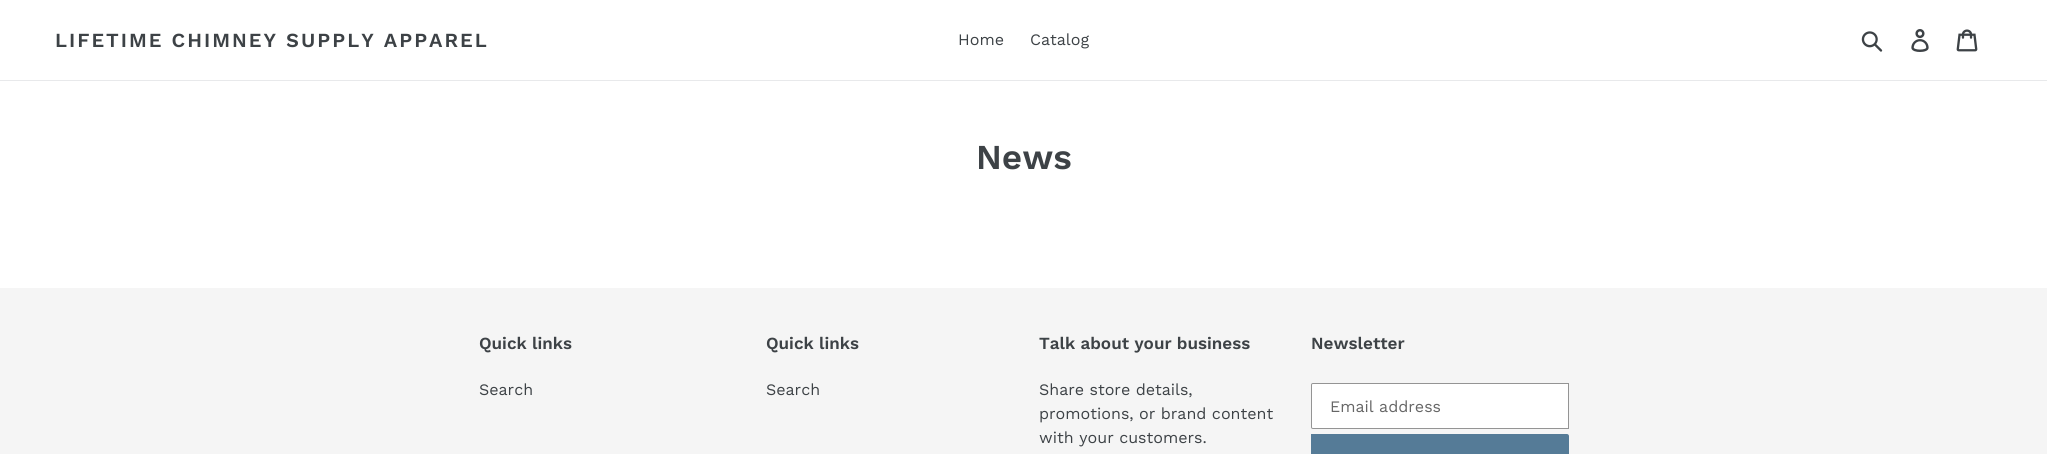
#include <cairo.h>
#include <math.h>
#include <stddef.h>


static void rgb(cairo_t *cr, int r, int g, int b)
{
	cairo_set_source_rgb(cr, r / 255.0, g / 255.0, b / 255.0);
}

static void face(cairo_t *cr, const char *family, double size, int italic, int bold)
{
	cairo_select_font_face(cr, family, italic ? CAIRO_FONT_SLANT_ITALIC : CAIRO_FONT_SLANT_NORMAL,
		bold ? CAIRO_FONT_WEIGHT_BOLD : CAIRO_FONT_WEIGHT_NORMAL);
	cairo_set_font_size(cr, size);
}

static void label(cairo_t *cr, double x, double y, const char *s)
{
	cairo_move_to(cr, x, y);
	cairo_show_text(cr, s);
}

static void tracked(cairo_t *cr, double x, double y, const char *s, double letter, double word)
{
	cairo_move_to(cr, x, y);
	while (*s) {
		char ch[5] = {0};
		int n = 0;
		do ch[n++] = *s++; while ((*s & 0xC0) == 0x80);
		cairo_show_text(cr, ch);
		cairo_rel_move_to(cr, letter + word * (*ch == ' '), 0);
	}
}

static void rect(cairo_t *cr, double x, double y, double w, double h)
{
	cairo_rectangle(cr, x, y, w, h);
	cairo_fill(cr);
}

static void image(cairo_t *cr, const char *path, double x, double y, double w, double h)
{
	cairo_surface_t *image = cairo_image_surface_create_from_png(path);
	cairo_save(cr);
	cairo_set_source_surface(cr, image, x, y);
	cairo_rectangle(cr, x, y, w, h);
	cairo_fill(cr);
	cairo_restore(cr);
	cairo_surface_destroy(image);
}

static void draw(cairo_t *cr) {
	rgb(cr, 255, 255, 255);
	cairo_paint(cr);
	rgb(cr, 232, 233, 235);
	rect(cr, 0, 80, 2047, 1);
	face(cr, "Work Sans SemiBold", 20, 0, 0);
	rgb(cr, 61, 66, 70);
	tracked(cr, 55, 47, "LIFETIME CHIMNEY SUPPLY APPAREL", 2, 0);
	face(cr, "Work Sans", 16, 0, 0);
	label(cr, 958, 45, "Home");
	label(cr, 1030, 45, "Catalog");
	image(cr, "image0.png", 1861, 31, 22, 21);
	image(cr, "image1.png", 1911, 29, 18, 23);
	image(cr, "image2.png", 1956, 29, 22, 23);
	face(cr, "Work Sans SemiBold", 35, 0, 0);
	label(cr, 976, 169, "News");
	rgb(cr, 245, 245, 245);
	rect(cr, 0, 288, 2047, 166);
	face(cr, "Work Sans SemiBold", 17, 0, 0);
	rgb(cr, 61, 66, 70);
	label(cr, 479, 349, "Quick links");
	face(cr, "Work Sans", 16, 0, 0);
	label(cr, 479, 395, "Search");
	face(cr, "Work Sans SemiBold", 17, 0, 0);
	label(cr, 766, 349, "Quick links");
	face(cr, "Work Sans", 16, 0, 0);
	label(cr, 766, 395, "Search");
	face(cr, "Work Sans SemiBold", 17, 0, 0);
	label(cr, 1039, 349, "Talk about your business");
	face(cr, "Work Sans", 16, 0, 0);
	label(cr, 1039, 395, "Share store details,");
	label(cr, 1039, 419, "promotions, or brand content");
	label(cr, 1039, 443, "with your customers.");
	face(cr, "Work Sans SemiBold", 17, 0, 0);
	label(cr, 1311, 349, "Newsletter");
	rgb(cr, 255, 255, 255);
	cairo_new_path(cr);
	cairo_move_to(cr, 1313, 383.5);
	cairo_line_to(cr, 1568.5, 383.5);
	cairo_line_to(cr, 1568.5, 428.5);
	cairo_line_to(cr, 1313, 428.5);
	cairo_curve_to(cr, 1312, 428.5, 1311.5, 428, 1311.5, 427);
	cairo_line_to(cr, 1311.5, 385);
	cairo_curve_to(cr, 1311.5, 384, 1312, 383.5, 1313, 383.5);
	cairo_close_path(cr);
	cairo_fill_preserve(cr);
	rgb(cr, 148, 148, 148);
	cairo_set_line_width(cr, 1);
	cairo_stroke(cr);
	face(cr, "Work Sans", 16, 0, 0);
	rgb(cr, 102, 102, 102);
	label(cr, 1330, 412, "Email address");
	rgb(cr, 85, 123, 151);
	cairo_new_path(cr);
	cairo_move_to(cr, 1311, 434);
	cairo_line_to(cr, 1567, 434);
	cairo_curve_to(cr, 1568, 434, 1569, 435, 1569, 436);
	cairo_line_to(cr, 1569, 454);
	cairo_curve_to(cr, 1569, 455, 1568, 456, 1567, 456);
	cairo_line_to(cr, 1311, 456);
	cairo_close_path(cr);
	cairo_fill(cr);
}

int main(void) {
	cairo_surface_t *surface = cairo_image_surface_create(CAIRO_FORMAT_RGB24, 2047, 454);
	cairo_t *cr = cairo_create(surface);
	cairo_font_options_t *options = cairo_font_options_create();
	cairo_font_options_set_hint_metrics(options, CAIRO_HINT_METRICS_OFF);
	cairo_font_options_set_hint_style(options, CAIRO_HINT_STYLE_NONE);
	cairo_set_font_options(cr, options);
	cairo_set_miter_limit(cr, 4);
	draw(cr);
	cairo_surface_write_to_png(surface, "render.png");
	cairo_font_options_destroy(options);
	cairo_destroy(cr);
	cairo_surface_destroy(surface);
	return 0;
}
